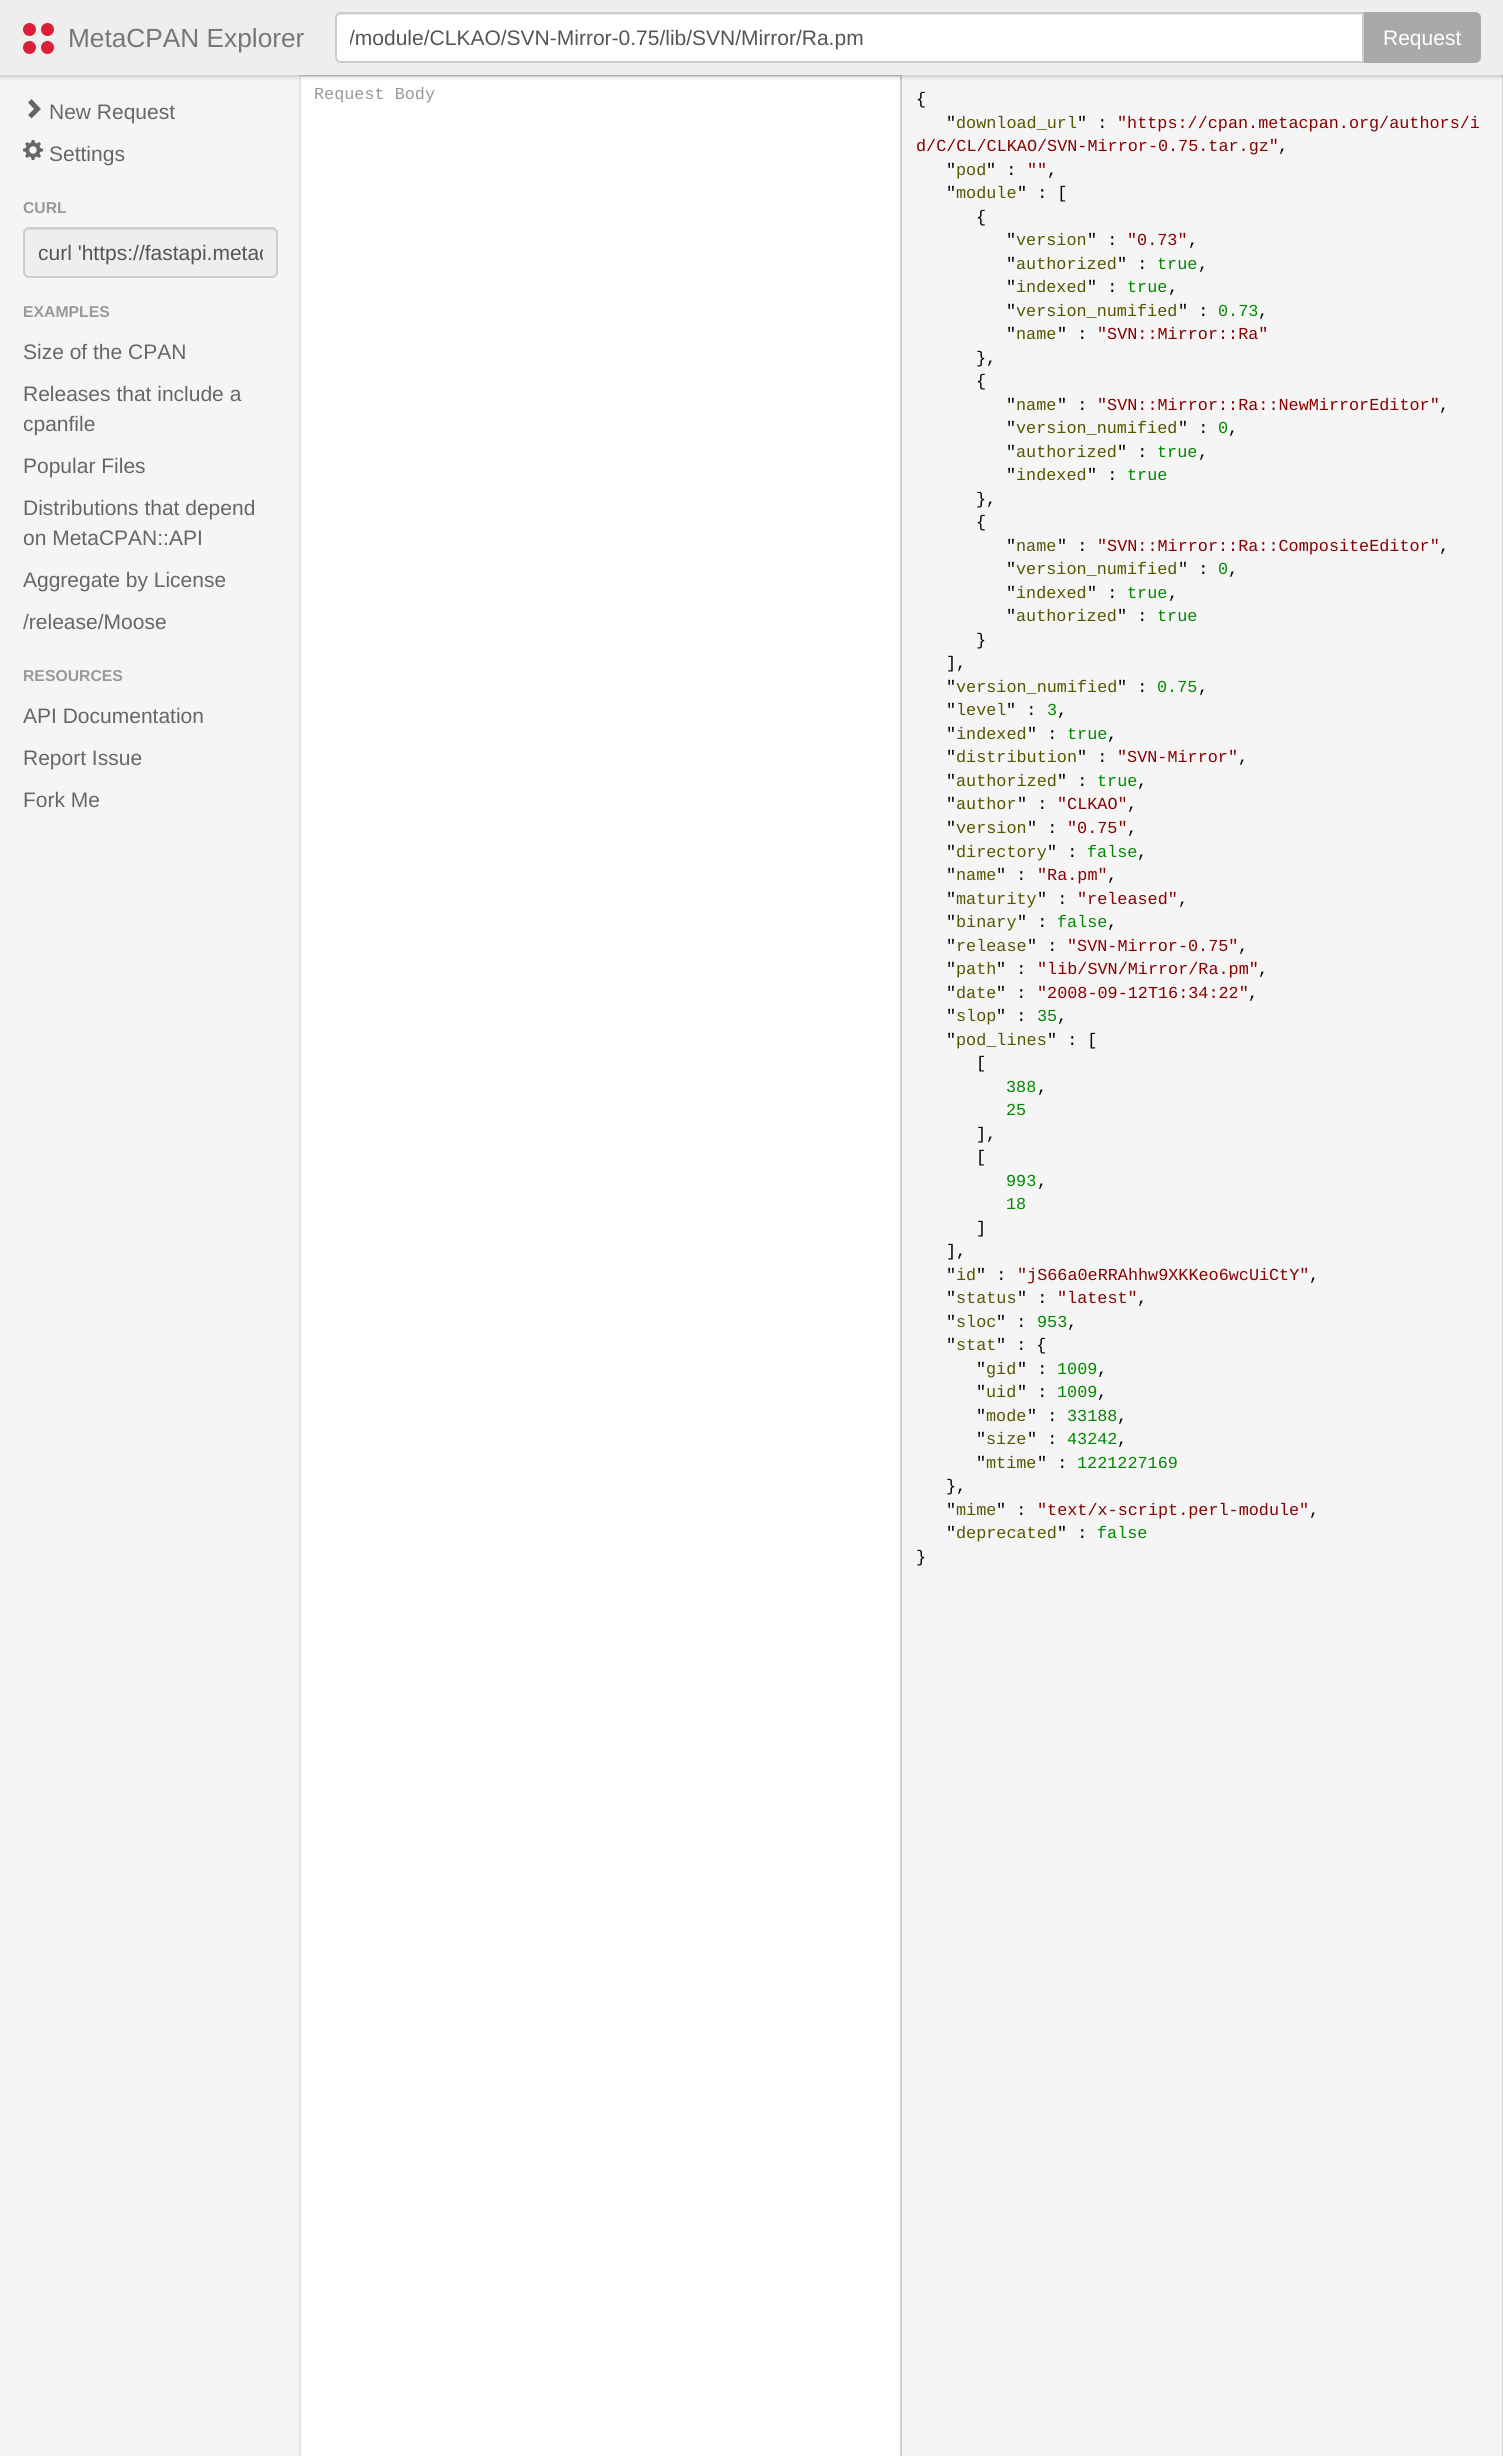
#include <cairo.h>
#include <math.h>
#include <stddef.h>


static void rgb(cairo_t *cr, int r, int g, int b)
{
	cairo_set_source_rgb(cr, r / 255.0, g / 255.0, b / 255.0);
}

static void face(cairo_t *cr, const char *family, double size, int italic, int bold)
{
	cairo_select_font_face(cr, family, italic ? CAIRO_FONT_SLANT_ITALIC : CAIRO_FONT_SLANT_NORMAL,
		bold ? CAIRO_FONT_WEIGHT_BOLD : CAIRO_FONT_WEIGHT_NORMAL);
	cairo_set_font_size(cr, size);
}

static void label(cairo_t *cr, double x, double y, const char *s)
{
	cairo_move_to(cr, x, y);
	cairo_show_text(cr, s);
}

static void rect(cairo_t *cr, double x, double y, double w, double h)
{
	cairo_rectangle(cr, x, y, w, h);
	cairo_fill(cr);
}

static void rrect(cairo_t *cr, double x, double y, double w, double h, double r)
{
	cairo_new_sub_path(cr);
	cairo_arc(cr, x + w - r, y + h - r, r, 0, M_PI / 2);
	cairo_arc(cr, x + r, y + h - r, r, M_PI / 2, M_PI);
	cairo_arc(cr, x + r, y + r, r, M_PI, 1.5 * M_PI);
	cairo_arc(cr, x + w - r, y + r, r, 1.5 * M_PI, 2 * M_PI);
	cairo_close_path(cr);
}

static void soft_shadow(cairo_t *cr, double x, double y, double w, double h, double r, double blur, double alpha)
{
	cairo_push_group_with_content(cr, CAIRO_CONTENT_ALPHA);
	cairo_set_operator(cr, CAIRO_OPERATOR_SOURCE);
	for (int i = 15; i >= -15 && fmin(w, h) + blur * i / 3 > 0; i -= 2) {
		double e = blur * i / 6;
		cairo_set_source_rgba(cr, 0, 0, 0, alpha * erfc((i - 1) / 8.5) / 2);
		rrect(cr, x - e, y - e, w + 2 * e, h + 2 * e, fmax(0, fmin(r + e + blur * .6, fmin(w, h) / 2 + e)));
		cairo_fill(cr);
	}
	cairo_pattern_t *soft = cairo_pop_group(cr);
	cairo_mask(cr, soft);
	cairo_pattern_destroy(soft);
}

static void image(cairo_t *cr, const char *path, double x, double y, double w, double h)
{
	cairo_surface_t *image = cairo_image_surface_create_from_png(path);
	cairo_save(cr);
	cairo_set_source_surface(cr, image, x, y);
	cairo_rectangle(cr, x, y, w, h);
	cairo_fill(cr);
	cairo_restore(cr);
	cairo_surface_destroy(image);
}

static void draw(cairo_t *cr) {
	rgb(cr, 255, 255, 255);
	cairo_paint(cr);
	rgb(cr, 245, 245, 245);
	rect(cr, 0, 75, 299, 2381);
	rgb(cr, 236, 236, 236);
	rect(cr, 300, 76, 600, 1);
	rgb(cr, 204, 204, 204);
	rect(cr, 300, 75, 602, 1);
	rgb(cr, 229, 229, 229);
	rect(cr, 299, 75, 2, 2381);
	rgb(cr, 204, 204, 204);
	rect(cr, 900, 74, 2, 2382);
	rgb(cr, 245, 245, 245);
	rect(cr, 902, 75, 601, 2381);
	cairo_set_source_rgba(cr, 0, 0, 0, 0.15);
	cairo_new_path(cr);
	cairo_move_to(cr, 1503, 74);
	cairo_line_to(cr, 1503, 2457);
	cairo_line_to(cr, 1502, 2456);
	cairo_line_to(cr, 1502, 75);
	cairo_close_path(cr);
	cairo_fill(cr);
	rgb(cr, 0, 0, 0);
	soft_shadow(cr, 0, 2, 1503, 75, 0, 2, 0.2);
	rgb(cr, 238, 238, 238);
	rect(cr, 0, 0, 1503, 75);
	rgb(cr, 218, 32, 55);
	cairo_arc(cr, 29.5, 29.5, 6.5, 0, 2 * M_PI);
	cairo_fill(cr);
	cairo_arc(cr, 47.5, 29.5, 6.5, 0, 2 * M_PI);
	cairo_fill(cr);
	cairo_arc(cr, 29.5, 47.5, 6.5, 0, 2 * M_PI);
	cairo_fill(cr);
	cairo_arc(cr, 47.5, 47.5, 6.5, 0, 2 * M_PI);
	cairo_fill(cr);
	face(cr, "Liberation Sans", 26.25, 0, 0);
	rgb(cr, 119, 119, 119);
	label(cr, 68, 47, "MetaCPAN Explorer");
	rgb(cr, 255, 255, 255);
	cairo_new_path(cr);
	cairo_move_to(cr, 341, 12);
	cairo_line_to(cr, 1364, 12);
	cairo_line_to(cr, 1364, 63);
	cairo_line_to(cr, 341, 63);
	cairo_curve_to(cr, 337.5, 63, 335, 60.5, 335, 57);
	cairo_line_to(cr, 335, 18);
	cairo_curve_to(cr, 335, 14.5, 337.5, 12, 341, 12);
	cairo_close_path(cr);
	cairo_fill(cr);
	rgb(cr, 236, 236, 236);
	cairo_new_path(cr);
	cairo_move_to(cr, 340, 15);
	cairo_line_to(cr, 1362, 15);
	cairo_line_to(cr, 1362, 14);
	cairo_line_to(cr, 341, 14);
	cairo_curve_to(cr, 338, 14, 336, 17, 336, 20);
	cairo_curve_to(cr, 336, 17, 338, 15, 340, 15);
	cairo_close_path(cr);
	cairo_fill(cr);
	cairo_new_path(cr);
	cairo_move_to(cr, 341, 13);
	cairo_line_to(cr, 1363, 13);
	cairo_line_to(cr, 1363, 62);
	cairo_line_to(cr, 341, 62);
	cairo_curve_to(cr, 338, 62, 336, 60, 336, 57);
	cairo_line_to(cr, 336, 18);
	cairo_curve_to(cr, 336, 15, 338, 13, 341, 13);
	cairo_close_path(cr);
	rgb(cr, 204, 204, 204);
	cairo_stroke(cr);
	cairo_save(cr);
	cairo_rectangle(cr, 350, 23, 999, 30);
	cairo_clip(cr);
	face(cr, "Liberation Sans", 21, 0, 0);
	rgb(cr, 85, 85, 85);
	label(cr, 349, 45, "/module/CLKAO/SVN-Mirror-0.75/lib/SVN/Mirror/Ra.pm");
	cairo_restore(cr);
	rgb(cr, 167, 169, 170);
	cairo_new_path(cr);
	cairo_move_to(cr, 1365, 13);
	cairo_line_to(cr, 1475, 13);
	cairo_curve_to(cr, 1478, 13, 1480, 15, 1480, 18);
	cairo_line_to(cr, 1480, 57);
	cairo_curve_to(cr, 1480, 60, 1478, 62, 1475, 62);
	cairo_line_to(cr, 1365, 62);
	cairo_close_path(cr);
	cairo_fill_preserve(cr);
	cairo_stroke(cr);
	face(cr, "Liberation Sans", 21, 0, 0);
	rgb(cr, 255, 255, 255);
	label(cr, 1383, 45, "Request");
	rgb(cr, 102, 102, 102);
	cairo_new_path(cr);
	cairo_move_to(cr, 28, 115);
	cairo_line_to(cr, 31.5, 118.5);
	cairo_line_to(cr, 41, 109);
	cairo_line_to(cr, 31.5, 99);
	cairo_line_to(cr, 28, 102.5);
	cairo_line_to(cr, 34, 109);
	cairo_close_path(cr);
	cairo_fill(cr);
	label(cr, 49, 119, "New Request");
	image(cr, "image0.png", 23, 140, 20, 20);
	label(cr, 49, 161, "Settings");
	face(cr, "Liberation Sans", 15.75, 0, 1);
	rgb(cr, 153, 153, 153);
	label(cr, 23, 213, "CURL");
	rgb(cr, 238, 238, 238);
	rrect(cr, 23, 227, 255, 51, 6);
	cairo_fill(cr);
	rgb(cr, 220, 220, 220);
	cairo_new_path(cr);
	cairo_move_to(cr, 28, 230);
	cairo_line_to(cr, 272, 230);
	cairo_curve_to(cr, 274, 230, 276, 232, 276, 234);
	cairo_line_to(cr, 276, 233);
	cairo_curve_to(cr, 276, 230, 274, 228, 271, 228);
	cairo_line_to(cr, 29, 228);
	cairo_curve_to(cr, 26, 228, 24, 230, 24, 233);
	cairo_line_to(cr, 24, 234);
	cairo_curve_to(cr, 24, 232, 26, 230, 28, 230);
	cairo_close_path(cr);
	cairo_fill(cr);
	rrect(cr, 24, 228, 253, 49, 5);
	rgb(cr, 204, 204, 204);
	cairo_stroke(cr);
	cairo_save(cr);
	cairo_rectangle(cr, 38, 237, 225, 30);
	cairo_clip(cr);
	face(cr, "Liberation Sans", 21, 0, 0);
	rgb(cr, 85, 85, 85);
	label(cr, 38, 260, "curl 'https://fastapi.metac");
	cairo_restore(cr);
	rgb(cr, 153, 153, 153);
	label(cr, 23, 317, "EXAMPLES");
	face(cr, "Liberation Sans", 21, 0, 0);
	rgb(cr, 102, 102, 102);
	label(cr, 23, 359, "Size of the CPAN");
	label(cr, 23, 401, "Releases that include a");
	label(cr, 23, 431, "cpanfile");
	label(cr, 23, 473, "Popular Files");
	label(cr, 23, 515, "Distributions that depend");
	label(cr, 23, 545, "on MetaCPAN::API");
	label(cr, 23, 587, "Aggregate by License");
	label(cr, 23, 629, "/release/Moose");
	face(cr, "Liberation Sans", 15.75, 0, 1);
	rgb(cr, 153, 153, 153);
	label(cr, 23, 681, "RESOURCES");
	face(cr, "Liberation Sans", 21, 0, 0);
	rgb(cr, 102, 102, 102);
	label(cr, 23, 723, "API Documentation");
	label(cr, 23, 765, "Report Issue");
	label(cr, 23, 807, "Fork Me");
	face(cr, "Liberation Mono", 16.8, 0, 0);
	rgb(cr, 153, 153, 153);
	label(cr, 314, 99, "Request Body");
	rgb(cr, 0, 0, 0);
	label(cr, 916, 104, "{");
	label(cr, 946, 128, "\"");
	rgb(cr, 85, 85, 0);
	label(cr, 956, 128, "download_url");
	rgb(cr, 0, 0, 0);
	label(cr, 1077, 128, "\" :");
	rgb(cr, 136, 0, 0);
	label(cr, 1117, 128, "\"https://cpan.metacpan.org/authors/i");
	label(cr, 916, 151, "d/C/CL/CLKAO/SVN-Mirror-0.75.tar.gz\"");
	rgb(cr, 0, 0, 0);
	label(cr, 1278, 151, ",");
	label(cr, 946, 175, "\"");
	rgb(cr, 85, 85, 0);
	label(cr, 956, 175, "pod");
	rgb(cr, 0, 0, 0);
	label(cr, 986, 175, "\" :");
	rgb(cr, 136, 0, 0);
	label(cr, 1027, 175, "\"\"");
	rgb(cr, 0, 0, 0);
	label(cr, 1047, 175, ",");
	label(cr, 946, 198, "\"");
	rgb(cr, 85, 85, 0);
	label(cr, 956, 198, "module");
	rgb(cr, 0, 0, 0);
	label(cr, 1017, 198, "\" : [");
	label(cr, 976, 222, "{");
	label(cr, 1006, 245, "\"");
	rgb(cr, 85, 85, 0);
	label(cr, 1016, 245, "version");
	rgb(cr, 0, 0, 0);
	label(cr, 1087, 245, "\" :");
	rgb(cr, 136, 0, 0);
	label(cr, 1127, 245, "\"0.73\"");
	rgb(cr, 0, 0, 0);
	label(cr, 1188, 245, ",");
	label(cr, 1006, 269, "\"");
	rgb(cr, 85, 85, 0);
	label(cr, 1016, 269, "authorized");
	rgb(cr, 0, 0, 0);
	label(cr, 1117, 269, "\" :");
	rgb(cr, 0, 136, 0);
	label(cr, 1157, 269, "true");
	rgb(cr, 0, 0, 0);
	label(cr, 1198, 269, ",");
	label(cr, 1006, 292, "\"");
	rgb(cr, 85, 85, 0);
	label(cr, 1016, 292, "indexed");
	rgb(cr, 0, 0, 0);
	label(cr, 1087, 292, "\" :");
	rgb(cr, 0, 136, 0);
	label(cr, 1127, 292, "true");
	rgb(cr, 0, 0, 0);
	label(cr, 1168, 292, ",");
	label(cr, 1006, 316, "\"");
	rgb(cr, 85, 85, 0);
	label(cr, 1016, 316, "version_numified");
	rgb(cr, 0, 0, 0);
	label(cr, 1178, 316, "\" :");
	rgb(cr, 0, 136, 0);
	label(cr, 1218, 316, "0.73");
	rgb(cr, 0, 0, 0);
	label(cr, 1258, 316, ",");
	label(cr, 1006, 339, "\"");
	rgb(cr, 85, 85, 0);
	label(cr, 1016, 339, "name");
	rgb(cr, 0, 0, 0);
	label(cr, 1057, 339, "\" :");
	rgb(cr, 136, 0, 0);
	label(cr, 1097, 339, "\"SVN::Mirror::Ra\"");
	rgb(cr, 0, 0, 0);
	label(cr, 976, 363, "},");
	label(cr, 976, 386, "{");
	label(cr, 1006, 410, "\"");
	rgb(cr, 85, 85, 0);
	label(cr, 1016, 410, "name");
	rgb(cr, 0, 0, 0);
	label(cr, 1057, 410, "\" :");
	rgb(cr, 136, 0, 0);
	label(cr, 1097, 410, "\"SVN::Mirror::Ra::NewMirrorEditor\"");
	rgb(cr, 0, 0, 0);
	label(cr, 1439, 410, ",");
	label(cr, 1006, 433, "\"");
	rgb(cr, 85, 85, 0);
	label(cr, 1016, 433, "version_numified");
	rgb(cr, 0, 0, 0);
	label(cr, 1178, 433, "\" :");
	rgb(cr, 0, 136, 0);
	label(cr, 1218, 433, "0");
	rgb(cr, 0, 0, 0);
	label(cr, 1228, 433, ",");
	label(cr, 1006, 457, "\"");
	rgb(cr, 85, 85, 0);
	label(cr, 1016, 457, "authorized");
	rgb(cr, 0, 0, 0);
	label(cr, 1117, 457, "\" :");
	rgb(cr, 0, 136, 0);
	label(cr, 1157, 457, "true");
	rgb(cr, 0, 0, 0);
	label(cr, 1198, 457, ",");
	label(cr, 1006, 480, "\"");
	rgb(cr, 85, 85, 0);
	label(cr, 1016, 480, "indexed");
	rgb(cr, 0, 0, 0);
	label(cr, 1087, 480, "\" :");
	rgb(cr, 0, 136, 0);
	label(cr, 1127, 480, "true");
	rgb(cr, 0, 0, 0);
	label(cr, 976, 504, "},");
	label(cr, 976, 527, "{");
	label(cr, 1006, 551, "\"");
	rgb(cr, 85, 85, 0);
	label(cr, 1016, 551, "name");
	rgb(cr, 0, 0, 0);
	label(cr, 1057, 551, "\" :");
	rgb(cr, 136, 0, 0);
	label(cr, 1097, 551, "\"SVN::Mirror::Ra::CompositeEditor\"");
	rgb(cr, 0, 0, 0);
	label(cr, 1439, 551, ",");
	label(cr, 1006, 574, "\"");
	rgb(cr, 85, 85, 0);
	label(cr, 1016, 574, "version_numified");
	rgb(cr, 0, 0, 0);
	label(cr, 1178, 574, "\" :");
	rgb(cr, 0, 136, 0);
	label(cr, 1218, 574, "0");
	rgb(cr, 0, 0, 0);
	label(cr, 1228, 574, ",");
	label(cr, 1006, 598, "\"");
	rgb(cr, 85, 85, 0);
	label(cr, 1016, 598, "indexed");
	rgb(cr, 0, 0, 0);
	label(cr, 1087, 598, "\" :");
	rgb(cr, 0, 136, 0);
	label(cr, 1127, 598, "true");
	rgb(cr, 0, 0, 0);
	label(cr, 1168, 598, ",");
	label(cr, 1006, 621, "\"");
	rgb(cr, 85, 85, 0);
	label(cr, 1016, 621, "authorized");
	rgb(cr, 0, 0, 0);
	label(cr, 1117, 621, "\" :");
	rgb(cr, 0, 136, 0);
	label(cr, 1157, 621, "true");
	rgb(cr, 0, 0, 0);
	label(cr, 976, 645, "}");
	label(cr, 946, 668, "],");
	label(cr, 946, 692, "\"");
	rgb(cr, 85, 85, 0);
	label(cr, 956, 692, "version_numified");
	rgb(cr, 0, 0, 0);
	label(cr, 1117, 692, "\" :");
	rgb(cr, 0, 136, 0);
	label(cr, 1157, 692, "0.75");
	rgb(cr, 0, 0, 0);
	label(cr, 1198, 692, ",");
	label(cr, 946, 715, "\"");
	rgb(cr, 85, 85, 0);
	label(cr, 956, 715, "level");
	rgb(cr, 0, 0, 0);
	label(cr, 1006, 715, "\" :");
	rgb(cr, 0, 136, 0);
	label(cr, 1047, 715, "3");
	rgb(cr, 0, 0, 0);
	label(cr, 1057, 715, ",");
	label(cr, 946, 739, "\"");
	rgb(cr, 85, 85, 0);
	label(cr, 956, 739, "indexed");
	rgb(cr, 0, 0, 0);
	label(cr, 1027, 739, "\" :");
	rgb(cr, 0, 136, 0);
	label(cr, 1067, 739, "true");
	rgb(cr, 0, 0, 0);
	label(cr, 1107, 739, ",");
	label(cr, 946, 762, "\"");
	rgb(cr, 85, 85, 0);
	label(cr, 956, 762, "distribution");
	rgb(cr, 0, 0, 0);
	label(cr, 1077, 762, "\" :");
	rgb(cr, 136, 0, 0);
	label(cr, 1117, 762, "\"SVN-Mirror\"");
	rgb(cr, 0, 0, 0);
	label(cr, 1238, 762, ",");
	label(cr, 946, 786, "\"");
	rgb(cr, 85, 85, 0);
	label(cr, 956, 786, "authorized");
	rgb(cr, 0, 0, 0);
	label(cr, 1057, 786, "\" :");
	rgb(cr, 0, 136, 0);
	label(cr, 1097, 786, "true");
	rgb(cr, 0, 0, 0);
	label(cr, 1137, 786, ",");
	label(cr, 946, 809, "\"");
	rgb(cr, 85, 85, 0);
	label(cr, 956, 809, "author");
	rgb(cr, 0, 0, 0);
	label(cr, 1017, 809, "\" :");
	rgb(cr, 136, 0, 0);
	label(cr, 1057, 809, "\"CLKAO\"");
	rgb(cr, 0, 0, 0);
	label(cr, 1127, 809, ",");
	label(cr, 946, 833, "\"");
	rgb(cr, 85, 85, 0);
	label(cr, 956, 833, "version");
	rgb(cr, 0, 0, 0);
	label(cr, 1027, 833, "\" :");
	rgb(cr, 136, 0, 0);
	label(cr, 1067, 833, "\"0.75\"");
	rgb(cr, 0, 0, 0);
	label(cr, 1127, 833, ",");
	label(cr, 946, 857, "\"");
	rgb(cr, 85, 85, 0);
	label(cr, 956, 857, "directory");
	rgb(cr, 0, 0, 0);
	label(cr, 1047, 857, "\" :");
	rgb(cr, 0, 136, 0);
	label(cr, 1087, 857, "false");
	rgb(cr, 0, 0, 0);
	label(cr, 1137, 857, ",");
	label(cr, 946, 880, "\"");
	rgb(cr, 85, 85, 0);
	label(cr, 956, 880, "name");
	rgb(cr, 0, 0, 0);
	label(cr, 996, 880, "\" :");
	rgb(cr, 136, 0, 0);
	label(cr, 1037, 880, "\"Ra.pm\"");
	rgb(cr, 0, 0, 0);
	label(cr, 1107, 880, ",");
	label(cr, 946, 904, "\"");
	rgb(cr, 85, 85, 0);
	label(cr, 956, 904, "maturity");
	rgb(cr, 0, 0, 0);
	label(cr, 1037, 904, "\" :");
	rgb(cr, 136, 0, 0);
	label(cr, 1077, 904, "\"released\"");
	rgb(cr, 0, 0, 0);
	label(cr, 1178, 904, ",");
	label(cr, 946, 927, "\"");
	rgb(cr, 85, 85, 0);
	label(cr, 956, 927, "binary");
	rgb(cr, 0, 0, 0);
	label(cr, 1017, 927, "\" :");
	rgb(cr, 0, 136, 0);
	label(cr, 1057, 927, "false");
	rgb(cr, 0, 0, 0);
	label(cr, 1107, 927, ",");
	label(cr, 946, 951, "\"");
	rgb(cr, 85, 85, 0);
	label(cr, 956, 951, "release");
	rgb(cr, 0, 0, 0);
	label(cr, 1027, 951, "\" :");
	rgb(cr, 136, 0, 0);
	label(cr, 1067, 951, "\"SVN-Mirror-0.75\"");
	rgb(cr, 0, 0, 0);
	label(cr, 1238, 951, ",");
	label(cr, 946, 974, "\"");
	rgb(cr, 85, 85, 0);
	label(cr, 956, 974, "path");
	rgb(cr, 0, 0, 0);
	label(cr, 996, 974, "\" :");
	rgb(cr, 136, 0, 0);
	label(cr, 1037, 974, "\"lib/SVN/Mirror/Ra.pm\"");
	rgb(cr, 0, 0, 0);
	label(cr, 1258, 974, ",");
	label(cr, 946, 998, "\"");
	rgb(cr, 85, 85, 0);
	label(cr, 956, 998, "date");
	rgb(cr, 0, 0, 0);
	label(cr, 996, 998, "\" :");
	rgb(cr, 136, 0, 0);
	label(cr, 1037, 998, "\"2008-09-12T16:34:22\"");
	rgb(cr, 0, 0, 0);
	label(cr, 1248, 998, ",");
	label(cr, 946, 1021, "\"");
	rgb(cr, 85, 85, 0);
	label(cr, 956, 1021, "slop");
	rgb(cr, 0, 0, 0);
	label(cr, 996, 1021, "\" :");
	rgb(cr, 0, 136, 0);
	label(cr, 1037, 1021, "35");
	rgb(cr, 0, 0, 0);
	label(cr, 1057, 1021, ",");
	label(cr, 946, 1045, "\"");
	rgb(cr, 85, 85, 0);
	label(cr, 956, 1045, "pod_lines");
	rgb(cr, 0, 0, 0);
	label(cr, 1047, 1045, "\" : [");
	label(cr, 976, 1068, "[");
	rgb(cr, 0, 136, 0);
	label(cr, 1006, 1092, "388");
	rgb(cr, 0, 0, 0);
	label(cr, 1037, 1092, ",");
	rgb(cr, 0, 136, 0);
	label(cr, 1006, 1115, "25");
	rgb(cr, 0, 0, 0);
	label(cr, 976, 1139, "],");
	label(cr, 976, 1162, "[");
	rgb(cr, 0, 136, 0);
	label(cr, 1006, 1186, "993");
	rgb(cr, 0, 0, 0);
	label(cr, 1037, 1186, ",");
	rgb(cr, 0, 136, 0);
	label(cr, 1006, 1209, "18");
	rgb(cr, 0, 0, 0);
	label(cr, 976, 1233, "]");
	label(cr, 946, 1256, "],");
	label(cr, 946, 1280, "\"");
	rgb(cr, 85, 85, 0);
	label(cr, 956, 1280, "id");
	rgb(cr, 0, 0, 0);
	label(cr, 976, 1280, "\" :");
	rgb(cr, 136, 0, 0);
	label(cr, 1017, 1280, "\"jS66a0eRRAhhw9XKKeo6wcUiCtY\"");
	rgb(cr, 0, 0, 0);
	label(cr, 1309, 1280, ",");
	label(cr, 946, 1303, "\"");
	rgb(cr, 85, 85, 0);
	label(cr, 956, 1303, "status");
	rgb(cr, 0, 0, 0);
	label(cr, 1017, 1303, "\" :");
	rgb(cr, 136, 0, 0);
	label(cr, 1057, 1303, "\"latest\"");
	rgb(cr, 0, 0, 0);
	label(cr, 1137, 1303, ",");
	label(cr, 946, 1327, "\"");
	rgb(cr, 85, 85, 0);
	label(cr, 956, 1327, "sloc");
	rgb(cr, 0, 0, 0);
	label(cr, 996, 1327, "\" :");
	rgb(cr, 0, 136, 0);
	label(cr, 1037, 1327, "953");
	rgb(cr, 0, 0, 0);
	label(cr, 1067, 1327, ",");
	label(cr, 946, 1350, "\"");
	rgb(cr, 85, 85, 0);
	label(cr, 956, 1350, "stat");
	rgb(cr, 0, 0, 0);
	label(cr, 996, 1350, "\" : {");
	label(cr, 976, 1374, "\"");
	rgb(cr, 85, 85, 0);
	label(cr, 986, 1374, "gid");
	rgb(cr, 0, 0, 0);
	label(cr, 1017, 1374, "\" :");
	rgb(cr, 0, 136, 0);
	label(cr, 1057, 1374, "1009");
	rgb(cr, 0, 0, 0);
	label(cr, 1097, 1374, ",");
	label(cr, 976, 1397, "\"");
	rgb(cr, 85, 85, 0);
	label(cr, 986, 1397, "uid");
	rgb(cr, 0, 0, 0);
	label(cr, 1017, 1397, "\" :");
	rgb(cr, 0, 136, 0);
	label(cr, 1057, 1397, "1009");
	rgb(cr, 0, 0, 0);
	label(cr, 1097, 1397, ",");
	label(cr, 976, 1421, "\"");
	rgb(cr, 85, 85, 0);
	label(cr, 986, 1421, "mode");
	rgb(cr, 0, 0, 0);
	label(cr, 1027, 1421, "\" :");
	rgb(cr, 0, 136, 0);
	label(cr, 1067, 1421, "33188");
	rgb(cr, 0, 0, 0);
	label(cr, 1117, 1421, ",");
	label(cr, 976, 1444, "\"");
	rgb(cr, 85, 85, 0);
	label(cr, 986, 1444, "size");
	rgb(cr, 0, 0, 0);
	label(cr, 1027, 1444, "\" :");
	rgb(cr, 0, 136, 0);
	label(cr, 1067, 1444, "43242");
	rgb(cr, 0, 0, 0);
	label(cr, 1117, 1444, ",");
	label(cr, 976, 1468, "\"");
	rgb(cr, 85, 85, 0);
	label(cr, 986, 1468, "mtime");
	rgb(cr, 0, 0, 0);
	label(cr, 1037, 1468, "\" :");
	rgb(cr, 0, 136, 0);
	label(cr, 1077, 1468, "1221227169");
	rgb(cr, 0, 0, 0);
	label(cr, 946, 1491, "},");
	label(cr, 946, 1515, "\"");
	rgb(cr, 85, 85, 0);
	label(cr, 956, 1515, "mime");
	rgb(cr, 0, 0, 0);
	label(cr, 996, 1515, "\" :");
	rgb(cr, 136, 0, 0);
	label(cr, 1037, 1515, "\"text/x-script.perl-module\"");
	rgb(cr, 0, 0, 0);
	label(cr, 1309, 1515, ",");
	label(cr, 946, 1538, "\"");
	rgb(cr, 85, 85, 0);
	label(cr, 956, 1538, "deprecated");
	rgb(cr, 0, 0, 0);
	label(cr, 1057, 1538, "\" :");
	rgb(cr, 0, 136, 0);
	label(cr, 1097, 1538, "false");
	rgb(cr, 0, 0, 0);
	label(cr, 916, 1562, "}");
}

int main(void) {
	cairo_surface_t *surface = cairo_image_surface_create(CAIRO_FORMAT_RGB24, 1503, 2456);
	cairo_t *cr = cairo_create(surface);
	cairo_font_options_t *options = cairo_font_options_create();
	cairo_font_options_set_hint_metrics(options, CAIRO_HINT_METRICS_OFF);
	cairo_font_options_set_hint_style(options, CAIRO_HINT_STYLE_NONE);
	cairo_set_font_options(cr, options);
	cairo_set_miter_limit(cr, 4);
	draw(cr);
	cairo_surface_write_to_png(surface, "render.png");
	cairo_font_options_destroy(options);
	cairo_destroy(cr);
	cairo_surface_destroy(surface);
	return 0;
}
